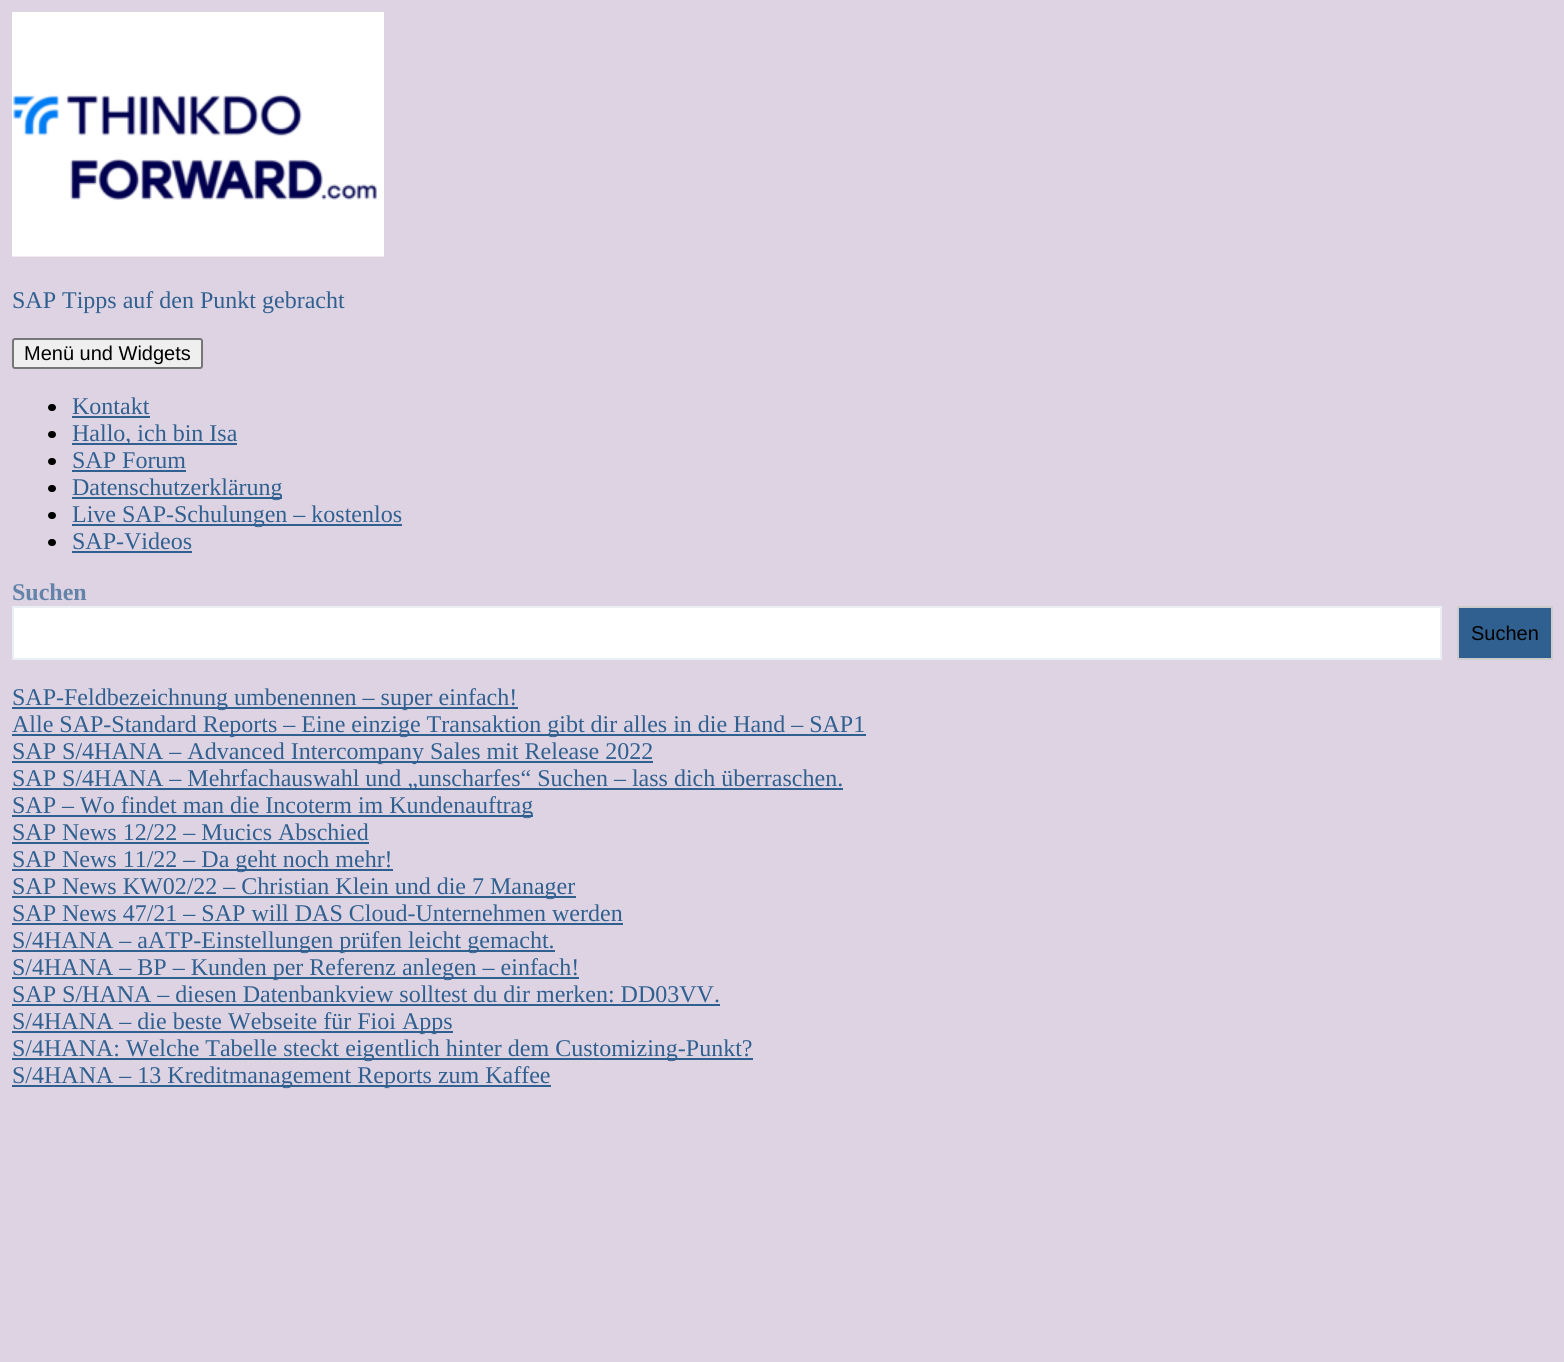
#include <cairo.h>
#include <math.h>
#include <stddef.h>


static void rgb(cairo_t *cr, int r, int g, int b)
{
	cairo_set_source_rgb(cr, r / 255.0, g / 255.0, b / 255.0);
}

static void face(cairo_t *cr, const char *family, double size, int italic, int bold)
{
	cairo_select_font_face(cr, family, italic ? CAIRO_FONT_SLANT_ITALIC : CAIRO_FONT_SLANT_NORMAL,
		bold ? CAIRO_FONT_WEIGHT_BOLD : CAIRO_FONT_WEIGHT_NORMAL);
	cairo_set_font_size(cr, size);
}

static void label(cairo_t *cr, double x, double y, const char *s)
{
	cairo_move_to(cr, x, y);
	cairo_show_text(cr, s);
}

static void rect(cairo_t *cr, double x, double y, double w, double h)
{
	cairo_rectangle(cr, x, y, w, h);
	cairo_fill(cr);
}

static void rrect(cairo_t *cr, double x, double y, double w, double h, double r)
{
	cairo_new_sub_path(cr);
	cairo_arc(cr, x + w - r, y + h - r, r, 0, M_PI / 2);
	cairo_arc(cr, x + r, y + h - r, r, M_PI / 2, M_PI);
	cairo_arc(cr, x + r, y + r, r, M_PI, 1.5 * M_PI);
	cairo_arc(cr, x + w - r, y + r, r, 1.5 * M_PI, 2 * M_PI);
	cairo_close_path(cr);
}

static void image(cairo_t *cr, const char *path, double x, double y, double w, double h)
{
	cairo_surface_t *image = cairo_image_surface_create_from_png(path);
	cairo_save(cr);
	cairo_set_source_surface(cr, image, x, y);
	cairo_rectangle(cr, x, y, w, h);
	cairo_fill(cr);
	cairo_restore(cr);
	cairo_surface_destroy(image);
}

static void draw(cairo_t *cr) {
	rgb(cr, 222, 211, 226);
	cairo_paint(cr);
	image(cr, "image0.png", 12, 12, 372, 245);
	face(cr, "Liberation Serif", 24, 0, 0);
	rgb(cr, 48, 96, 144);
	label(cr, 12, 308, "SAP Tipps auf den Punkt gebracht");
	rgb(cr, 239, 239, 239);
	rrect(cr, 13, 339, 189, 29, 2);
	cairo_fill_preserve(cr);
	rgb(cr, 118, 118, 118);
	cairo_stroke(cr);
	face(cr, "Liberation Sans", 20, 0, 0);
	rgb(cr, 0, 0, 0);
	label(cr, 24, 360, "Menü und Widgets");
	rrect(cr, 48, 404, 8, 7, 3.5);
	cairo_fill(cr);
	face(cr, "Liberation Serif", 24, 0, 0);
	rgb(cr, 48, 96, 144);
	label(cr, 72, 414, "Kontakt");
	rect(cr, 72, 416, 78, 2);
	rgb(cr, 0, 0, 0);
	rrect(cr, 48, 431, 8, 7, 3.5);
	cairo_fill(cr);
	rgb(cr, 48, 96, 144);
	rect(cr, 72, 443, 165, 2);
	label(cr, 72, 441, "Hallo, ich bin Isa");
	rgb(cr, 0, 0, 0);
	rrect(cr, 48, 458, 8, 7, 3.5);
	cairo_fill(cr);
	rgb(cr, 48, 96, 144);
	label(cr, 72, 468, "SAP Forum");
	rect(cr, 72, 470, 114, 2);
	rgb(cr, 0, 0, 0);
	rrect(cr, 48, 485, 8, 7, 3.5);
	cairo_fill(cr);
	rgb(cr, 48, 96, 144);
	rect(cr, 72, 497, 210, 2);
	label(cr, 72, 495, "Datenschutzerklärung");
	rgb(cr, 0, 0, 0);
	rrect(cr, 48, 512, 8, 7, 3.5);
	cairo_fill(cr);
	rgb(cr, 48, 96, 144);
	rect(cr, 72, 524, 330, 2);
	label(cr, 72, 522, "Live SAP-Schulungen – kostenlos");
	rgb(cr, 0, 0, 0);
	rrect(cr, 48, 539, 8, 7, 3.5);
	cairo_fill(cr);
	rgb(cr, 48, 96, 144);
	label(cr, 72, 549, "SAP-Videos");
	rect(cr, 72, 551, 120, 2);
	face(cr, "Liberation Serif", 24, 0, 1);
	rgb(cr, 100, 131, 169);
	label(cr, 12, 600, "Suchen");
	rgb(cr, 255, 255, 255);
	cairo_rectangle(cr, 13, 607, 1428, 52);
	cairo_fill_preserve(cr);
	rgb(cr, 234, 239, 244);
	cairo_stroke(cr);
	rgb(cr, 48, 96, 144);
	cairo_rectangle(cr, 1458, 607, 94, 52);
	cairo_fill_preserve(cr);
	rgb(cr, 204, 204, 204);
	cairo_stroke(cr);
	face(cr, "Liberation Sans", 20, 0, 0);
	rgb(cr, 0, 0, 0);
	label(cr, 1471, 640, "Suchen");
	rgb(cr, 48, 96, 144);
	rect(cr, 12, 707, 506, 2);
	face(cr, "Liberation Serif", 24, 0, 0);
	label(cr, 12, 705, "SAP-Feldbezeichnung umbenennen – super einfach!");
	rect(cr, 12, 734, 854, 2);
	label(cr, 12, 732, "Alle SAP-Standard Reports – Eine einzige Transaktion gibt dir alles in die Hand – SAP1");
	rect(cr, 12, 761, 641, 2);
	label(cr, 12, 759, "SAP S/4HANA – Advanced Intercompany Sales mit Release 2022");
	rect(cr, 12, 788, 831, 2);
	label(cr, 12, 786, "SAP S/4HANA – Mehrfachauswahl und „unscharfes“ Suchen – lass dich überraschen.");
	rect(cr, 12, 815, 521, 2);
	label(cr, 12, 813, "SAP – Wo findet man die Incoterm im Kundenauftrag");
	label(cr, 12, 840, "SAP News 12/22 – Mucics Abschied");
	rect(cr, 12, 842, 357, 2);
	rect(cr, 12, 869, 381, 2);
	label(cr, 12, 867, "SAP News 11/22 – Da geht noch mehr!");
	rect(cr, 12, 896, 564, 2);
	label(cr, 12, 894, "SAP News KW02/22 – Christian Klein und die 7 Manager");
	label(cr, 12, 921, "SAP News 47/21 – SAP will DAS Cloud-Unternehmen werden");
	rect(cr, 12, 923, 611, 2);
	rect(cr, 12, 950, 543, 2);
	label(cr, 12, 948, "S/4HANA – aATP-Einstellungen prüfen leicht gemacht.");
	rect(cr, 12, 977, 567, 2);
	label(cr, 12, 975, "S/4HANA – BP – Kunden per Referenz anlegen – einfach!");
	label(cr, 12, 1002, "SAP S/HANA – diesen Datenbankview solltest du dir merken: DD03VV.");
	rect(cr, 12, 1004, 708, 2);
	rect(cr, 12, 1031, 441, 2);
	label(cr, 12, 1029, "S/4HANA – die beste Webseite für Fioi Apps");
	rect(cr, 12, 1058, 741, 2);
	label(cr, 12, 1056, "S/4HANA: Welche Tabelle steckt eigentlich hinter dem Customizing-Punkt?");
	rect(cr, 12, 1085, 539, 2);
	label(cr, 12, 1083, "S/4HANA – 13 Kreditmanagement Reports zum Kaffee");
}

int main(void) {
	cairo_surface_t *surface = cairo_image_surface_create(CAIRO_FORMAT_RGB24, 1564, 1362);
	cairo_t *cr = cairo_create(surface);
	cairo_font_options_t *options = cairo_font_options_create();
	cairo_font_options_set_hint_metrics(options, CAIRO_HINT_METRICS_OFF);
	cairo_font_options_set_hint_style(options, CAIRO_HINT_STYLE_NONE);
	cairo_set_font_options(cr, options);
	cairo_set_miter_limit(cr, 4);
	draw(cr);
	cairo_surface_write_to_png(surface, "render.png");
	cairo_font_options_destroy(options);
	cairo_destroy(cr);
	cairo_surface_destroy(surface);
	return 0;
}
